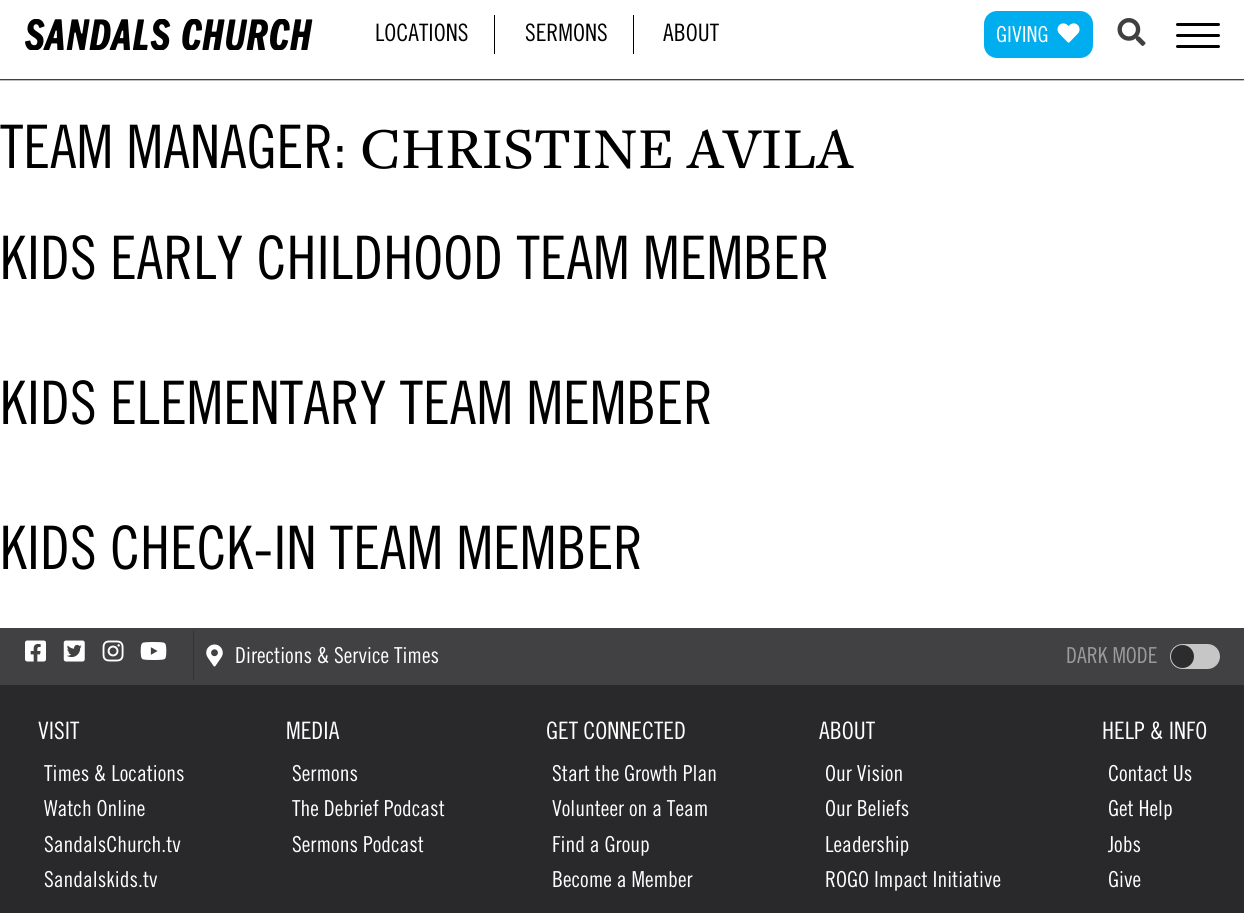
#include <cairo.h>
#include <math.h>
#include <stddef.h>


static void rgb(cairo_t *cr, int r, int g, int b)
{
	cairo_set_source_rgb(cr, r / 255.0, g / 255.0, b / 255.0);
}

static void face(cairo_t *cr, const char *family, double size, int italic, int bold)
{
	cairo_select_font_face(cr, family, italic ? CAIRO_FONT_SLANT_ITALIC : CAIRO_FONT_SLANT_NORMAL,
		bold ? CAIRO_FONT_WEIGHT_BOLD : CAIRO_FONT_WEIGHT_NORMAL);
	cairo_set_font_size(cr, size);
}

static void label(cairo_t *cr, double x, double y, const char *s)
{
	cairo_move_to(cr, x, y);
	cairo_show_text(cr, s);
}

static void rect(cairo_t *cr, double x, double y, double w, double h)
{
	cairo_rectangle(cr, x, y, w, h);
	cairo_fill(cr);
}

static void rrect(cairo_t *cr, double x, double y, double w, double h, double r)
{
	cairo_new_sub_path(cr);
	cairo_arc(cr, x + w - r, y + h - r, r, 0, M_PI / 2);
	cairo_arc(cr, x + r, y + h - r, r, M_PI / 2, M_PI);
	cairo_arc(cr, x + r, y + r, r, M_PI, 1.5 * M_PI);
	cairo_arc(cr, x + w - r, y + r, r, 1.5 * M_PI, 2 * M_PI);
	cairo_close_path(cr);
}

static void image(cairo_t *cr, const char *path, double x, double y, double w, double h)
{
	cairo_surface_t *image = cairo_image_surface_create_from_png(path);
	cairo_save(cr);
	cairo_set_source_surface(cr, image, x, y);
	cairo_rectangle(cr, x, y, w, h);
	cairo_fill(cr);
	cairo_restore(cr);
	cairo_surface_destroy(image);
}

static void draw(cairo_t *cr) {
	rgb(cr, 255, 255, 255);
	cairo_paint(cr);
	rgb(cr, 65, 64, 66);
	rect(cr, 0, 79, 1244, 1);
	image(cr, "image0.png", 25, 19, 288, 31);
	rgb(cr, 0, 0, 0);
	rect(cr, 494, 15, 1, 39);
	face(cr, "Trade", 24, 0, 0);
	label(cr, 375, 41, "LOCATIONS");
	rect(cr, 633, 15, 1, 39);
	label(cr, 525, 41, "SERMONS");
	label(cr, 663, 41, "ABOUT");
	rgb(cr, 0, 173, 238);
	rrect(cr, 984, 11, 109, 47, 13);
	cairo_fill(cr);
	face(cr, "Trade", 22, 0, 0);
	rgb(cr, 255, 255, 255);
	label(cr, 996, 42, "GIVING");
	image(cr, "image1.png", 1057, 23, 23, 20);
	image(cr, "image2.png", 1117, 18, 29, 28);
	rgb(cr, 0, 0, 0);
	rrect(cr, 1176, 23, 44, 3, 1.5);
	cairo_fill(cr);
	rrect(cr, 1176, 34, 44, 3, 1.5);
	cairo_fill(cr);
	rrect(cr, 1176, 45, 44, 3, 1.5);
	cairo_fill(cr);
	rgb(cr, 191, 191, 191);
	rect(cr, 0, 80, 1244, 1);
	face(cr, "Trade", 60, 0, 0);
	rgb(cr, 0, 0, 0);
	label(cr, 0, 168, "TEAM MANAGER:");
	face(cr, "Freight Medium", 60, 0, 0);
	label(cr, 360, 168, "CHRISTINE AVILA");
	face(cr, "Trade", 60, 0, 0);
	label(cr, 0, 279, "KIDS EARLY CHILDHOOD TEAM MEMBER");
	label(cr, 0, 424, "KIDS ELEMENTARY TEAM MEMBER");
	label(cr, 0, 569, "KIDS CHECK-IN TEAM MEMBER");
	rgb(cr, 65, 64, 66);
	rect(cr, 0, 628, 1244, 57);
	rgb(cr, 51, 51, 51);
	rect(cr, 193, 631, 1, 49);
	image(cr, "image3.png", 25, 640, 21, 22);
	image(cr, "image4.png", 63, 640, 22, 22);
	image(cr, "image5.png", 102, 640, 22, 22);
	image(cr, "image6.png", 140, 642, 27, 18);
	image(cr, "image7.png", 206, 644, 17, 23);
	face(cr, "Trade", 22, 0, 0);
	rgb(cr, 255, 255, 255);
	label(cr, 235, 663, "Directions & Service Times");
	rgb(cr, 155, 155, 155);
	label(cr, 1066, 663, "DARK MODE");
	rgb(cr, 198, 198, 199);
	rrect(cr, 1170, 644, 50, 25, 12.5);
	cairo_fill(cr);
	rgb(cr, 44, 44, 44);
	cairo_arc(cr, 1182.5, 656.5, 11.5, 0, 2 * M_PI);
	cairo_fill(cr);
	rgb(cr, 41, 40, 42);
	rect(cr, 0, 685, 1244, 228);
	face(cr, "Trade", 24, 0, 0);
	rgb(cr, 255, 255, 255);
	label(cr, 38, 739, "VISIT");
	face(cr, "Trade", 22, 0, 0);
	label(cr, 44, 781, "Times & Locations");
	label(cr, 44, 816, "Watch Online");
	label(cr, 44, 852, "SandalsChurch.tv");
	label(cr, 44, 887, "Sandalskids.tv");
	face(cr, "Trade", 24, 0, 0);
	label(cr, 286, 739, "MEDIA");
	face(cr, "Trade", 22, 0, 0);
	label(cr, 292, 781, "Sermons");
	label(cr, 292, 816, "The Debrief Podcast");
	label(cr, 292, 852, "Sermons Podcast");
	face(cr, "Trade", 24, 0, 0);
	label(cr, 546, 739, "GET CONNECTED");
	face(cr, "Trade", 22, 0, 0);
	label(cr, 552, 781, "Start the Growth Plan");
	label(cr, 552, 816, "Volunteer on a Team");
	label(cr, 552, 852, "Find a Group");
	label(cr, 552, 887, "Become a Member");
	face(cr, "Trade", 24, 0, 0);
	label(cr, 819, 739, "ABOUT");
	face(cr, "Trade", 22, 0, 0);
	label(cr, 825, 781, "Our Vision");
	label(cr, 825, 816, "Our Beliefs");
	label(cr, 825, 852, "Leadership");
	label(cr, 825, 887, "ROGO Impact Initiative");
	face(cr, "Trade", 24, 0, 0);
	label(cr, 1102, 739, "HELP & INFO");
	face(cr, "Trade", 22, 0, 0);
	label(cr, 1108, 781, "Contact Us");
	label(cr, 1108, 816, "Get Help");
	label(cr, 1108, 852, "Jobs");
	label(cr, 1108, 887, "Give");
}

int main(void) {
	cairo_surface_t *surface = cairo_image_surface_create(CAIRO_FORMAT_RGB24, 1244, 913);
	cairo_t *cr = cairo_create(surface);
	cairo_font_options_t *options = cairo_font_options_create();
	cairo_font_options_set_hint_metrics(options, CAIRO_HINT_METRICS_OFF);
	cairo_font_options_set_hint_style(options, CAIRO_HINT_STYLE_NONE);
	cairo_set_font_options(cr, options);
	cairo_set_miter_limit(cr, 4);
	draw(cr);
	cairo_surface_write_to_png(surface, "render.png");
	cairo_font_options_destroy(options);
	cairo_destroy(cr);
	cairo_surface_destroy(surface);
	return 0;
}
